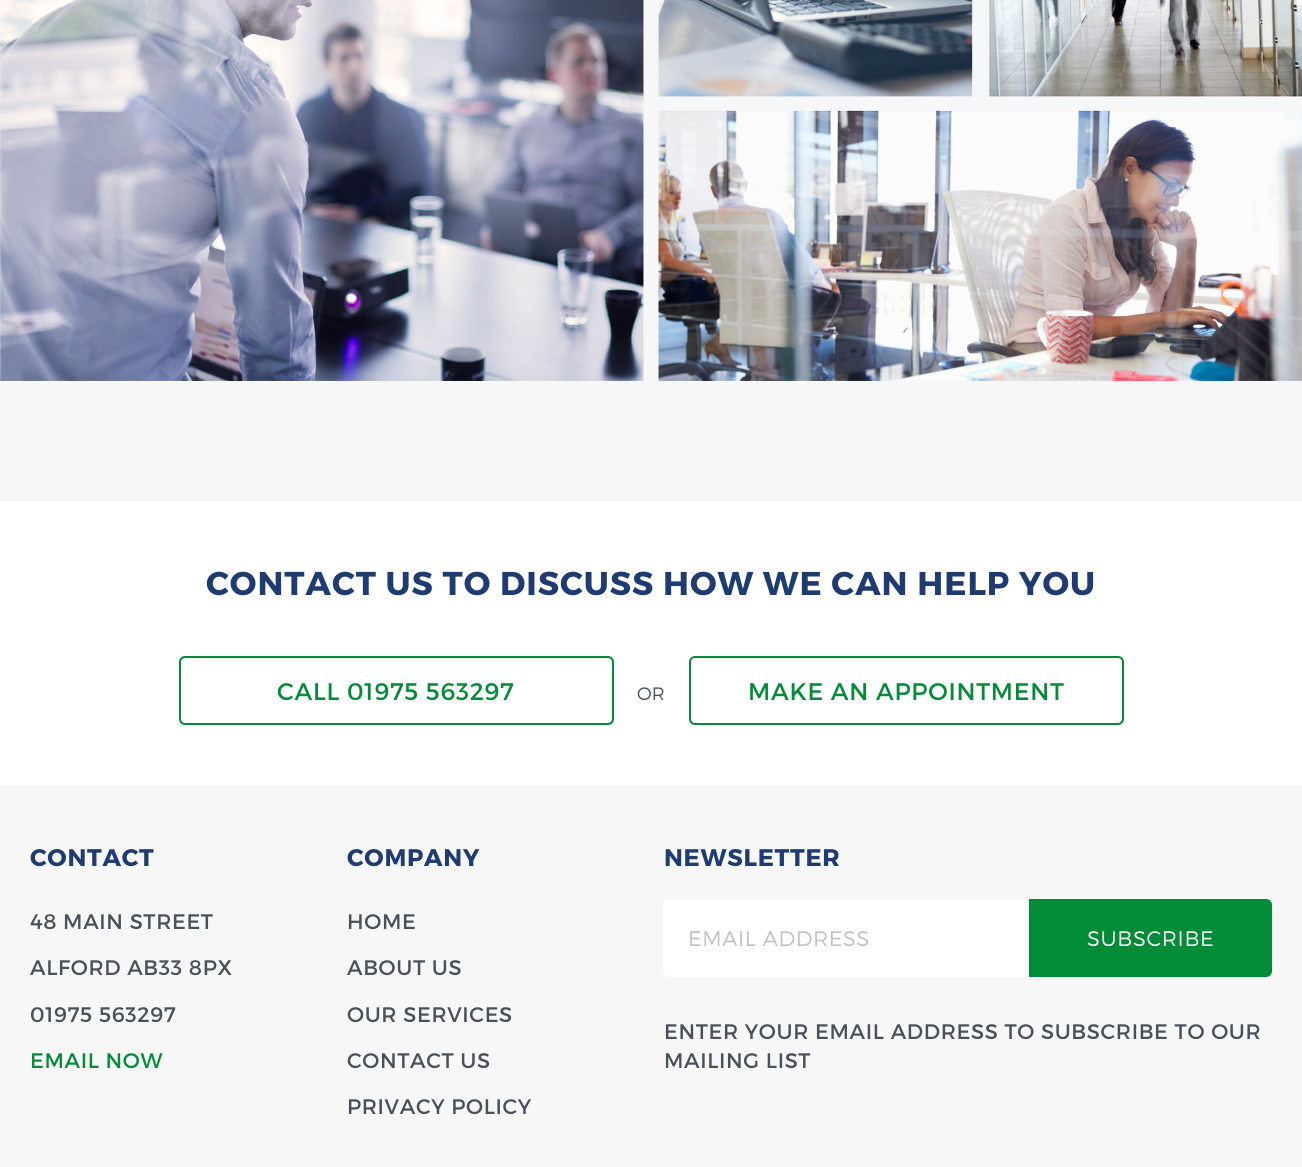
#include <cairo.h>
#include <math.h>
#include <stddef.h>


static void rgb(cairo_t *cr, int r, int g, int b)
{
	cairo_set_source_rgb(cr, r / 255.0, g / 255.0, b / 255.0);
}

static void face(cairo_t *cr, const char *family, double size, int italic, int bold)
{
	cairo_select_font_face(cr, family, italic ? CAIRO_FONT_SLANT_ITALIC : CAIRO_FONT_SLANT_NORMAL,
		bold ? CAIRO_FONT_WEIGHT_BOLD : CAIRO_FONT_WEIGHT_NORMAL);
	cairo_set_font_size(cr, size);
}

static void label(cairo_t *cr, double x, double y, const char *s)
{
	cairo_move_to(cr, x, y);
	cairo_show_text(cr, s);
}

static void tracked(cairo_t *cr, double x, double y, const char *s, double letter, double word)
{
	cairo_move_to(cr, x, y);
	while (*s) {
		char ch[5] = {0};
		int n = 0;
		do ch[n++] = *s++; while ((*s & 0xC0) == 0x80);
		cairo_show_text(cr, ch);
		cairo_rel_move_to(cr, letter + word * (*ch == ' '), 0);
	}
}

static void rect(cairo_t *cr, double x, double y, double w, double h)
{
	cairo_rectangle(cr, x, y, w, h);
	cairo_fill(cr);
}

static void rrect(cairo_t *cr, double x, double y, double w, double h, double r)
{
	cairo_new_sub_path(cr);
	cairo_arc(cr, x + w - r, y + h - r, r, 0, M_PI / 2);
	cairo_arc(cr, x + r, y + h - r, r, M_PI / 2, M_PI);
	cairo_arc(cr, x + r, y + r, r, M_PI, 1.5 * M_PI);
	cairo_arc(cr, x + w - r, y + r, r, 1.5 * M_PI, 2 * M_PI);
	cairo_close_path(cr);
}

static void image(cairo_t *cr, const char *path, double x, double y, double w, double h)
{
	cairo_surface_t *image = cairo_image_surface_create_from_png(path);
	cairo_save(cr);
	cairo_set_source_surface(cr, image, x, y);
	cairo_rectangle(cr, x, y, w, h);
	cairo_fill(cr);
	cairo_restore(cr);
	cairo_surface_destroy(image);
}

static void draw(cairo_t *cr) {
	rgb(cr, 255, 255, 255);
	cairo_paint(cr);
	rgb(cr, 247, 247, 248);
	rect(cr, 0, 0, 1302, 501);
	image(cr, "image0.png", 0, 0, 644, 381);
	image(cr, "image1.png", 658, 0, 644, 381);
	face(cr, "Montserrat", 33, 0, 1);
	rgb(cr, 30, 60, 114);
	tracked(cr, 206, 595, "CONTACT US TO DISCUSS HOW WE CAN HELP YOU", 1, 0);
	rrect(cr, 180, 657, 433, 67, 5);
	rgb(cr, 2, 140, 56);
	cairo_stroke(cr);
	face(cr, "Montserrat", 24, 0, 0);
	tracked(cr, 277, 700, "CALL 01975 563297", 0.75, 0);
	face(cr, "Montserrat Light", 18, 0, 0);
	rgb(cr, 72, 80, 90);
	label(cr, 637, 700, "OR");
	rrect(cr, 690, 657, 433, 67, 5);
	rgb(cr, 2, 140, 56);
	cairo_stroke(cr);
	face(cr, "Montserrat", 24, 0, 0);
	tracked(cr, 748, 700, "MAKE AN APPOINTMENT", 0.75, 0);
	rgb(cr, 247, 247, 248);
	rect(cr, 0, 785, 1302, 382);
	face(cr, "Montserrat", 24, 0, 1);
	rgb(cr, 30, 60, 114);
	tracked(cr, 30, 866, "CONTACT", 0.75, 0);
	face(cr, "Montserrat", 21, 0, 0);
	rgb(cr, 72, 80, 90);
	tracked(cr, 30, 929, "48 MAIN STREET", 0.65, 0);
	tracked(cr, 30, 975, "ALFORD AB33 8PX", 0.65, 0);
	tracked(cr, 30, 1022, "01975 563297", 0.65, 0);
	rgb(cr, 2, 140, 56);
	tracked(cr, 30, 1068, "EMAIL NOW", 0.65, 0);
	face(cr, "Montserrat", 24, 0, 1);
	rgb(cr, 30, 60, 114);
	tracked(cr, 347, 866, "COMPANY", 0.75, 0);
	face(cr, "Montserrat", 21, 0, 0);
	rgb(cr, 72, 80, 90);
	tracked(cr, 347, 929, "HOME", 0.65, 0);
	tracked(cr, 347, 975, "ABOUT US", 0.65, 0);
	tracked(cr, 347, 1022, "OUR SERVICES", 0.65, 0);
	tracked(cr, 347, 1068, "CONTACT US", 0.65, 0);
	tracked(cr, 347, 1114, "PRIVACY POLICY", 0.65, 0);
	face(cr, "Montserrat", 24, 0, 1);
	rgb(cr, 30, 60, 114);
	tracked(cr, 664, 866, "NEWSLETTER", 0.75, 0);
	rgb(cr, 255, 255, 255);
	cairo_new_path(cr);
	cairo_move_to(cr, 669, 899);
	cairo_line_to(cr, 1029, 899);
	cairo_line_to(cr, 1029, 977);
	cairo_line_to(cr, 669, 977);
	cairo_curve_to(cr, 665.5, 977, 663, 974.5, 663, 971);
	cairo_line_to(cr, 663, 905);
	cairo_curve_to(cr, 663, 901.5, 665.5, 899, 669, 899);
	cairo_close_path(cr);
	cairo_fill(cr);
	face(cr, "Montserrat Light", 21, 0, 0);
	rgb(cr, 192, 192, 192);
	tracked(cr, 688, 946, "EMAIL ADDRESS", 0.65, 0);
	rgb(cr, 2, 140, 56);
	cairo_new_path(cr);
	cairo_move_to(cr, 1029, 899);
	cairo_line_to(cr, 1266, 899);
	cairo_curve_to(cr, 1269.5, 899, 1272, 901.5, 1272, 905);
	cairo_line_to(cr, 1272, 971);
	cairo_curve_to(cr, 1272, 974.5, 1269.5, 977, 1266, 977);
	cairo_line_to(cr, 1029, 977);
	cairo_close_path(cr);
	cairo_fill(cr);
	rgb(cr, 255, 255, 255);
	tracked(cr, 1087, 946, "SUBSCRIBE", 0.65, 0);
	face(cr, "Montserrat", 21, 0, 0);
	rgb(cr, 72, 80, 90);
	tracked(cr, 664, 1039, "ENTER YOUR EMAIL ADDRESS TO SUBSCRIBE TO OUR", 0.65, 0);
	tracked(cr, 664, 1068, "MAILING LIST", 0.65, 0);
}

int main(void) {
	cairo_surface_t *surface = cairo_image_surface_create(CAIRO_FORMAT_RGB24, 1302, 1167);
	cairo_t *cr = cairo_create(surface);
	cairo_font_options_t *options = cairo_font_options_create();
	cairo_font_options_set_hint_metrics(options, CAIRO_HINT_METRICS_OFF);
	cairo_font_options_set_hint_style(options, CAIRO_HINT_STYLE_NONE);
	cairo_set_font_options(cr, options);
	cairo_set_miter_limit(cr, 4);
	draw(cr);
	cairo_surface_write_to_png(surface, "render.png");
	cairo_font_options_destroy(options);
	cairo_destroy(cr);
	cairo_surface_destroy(surface);
	return 0;
}
